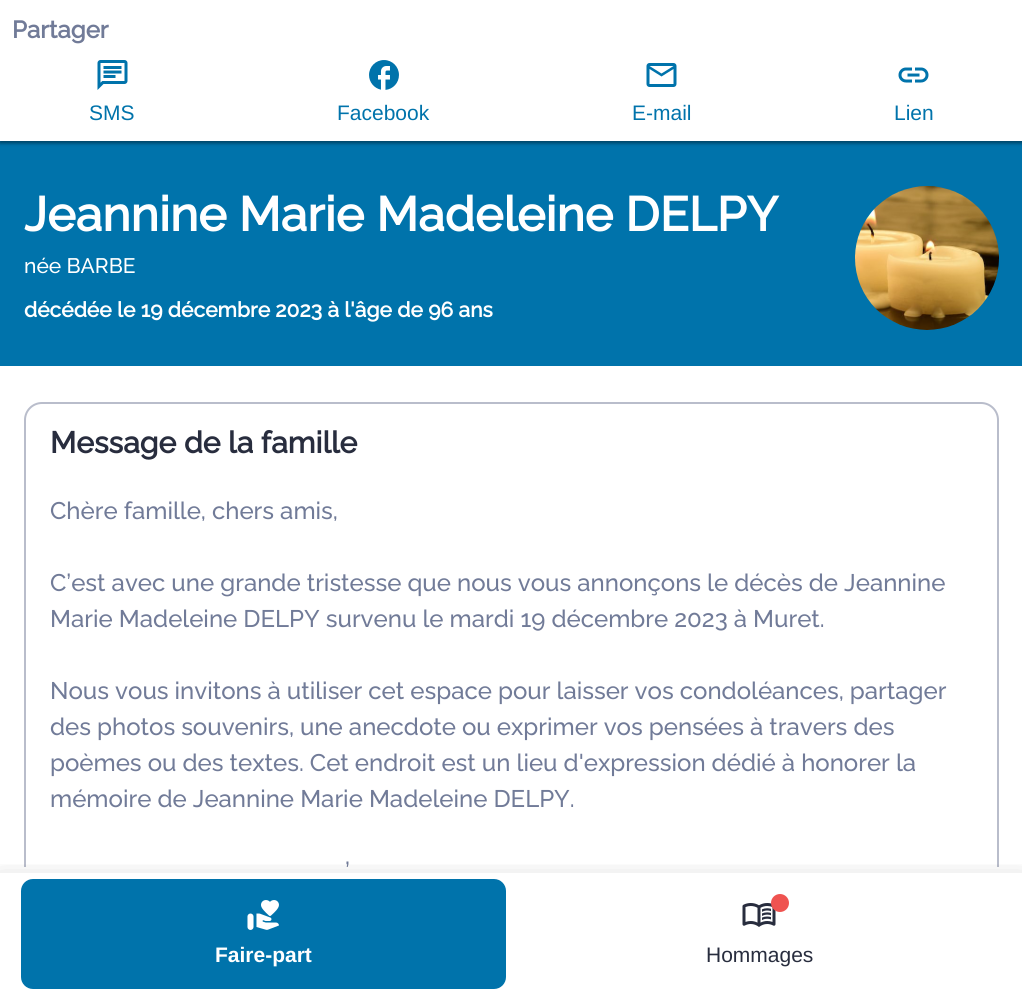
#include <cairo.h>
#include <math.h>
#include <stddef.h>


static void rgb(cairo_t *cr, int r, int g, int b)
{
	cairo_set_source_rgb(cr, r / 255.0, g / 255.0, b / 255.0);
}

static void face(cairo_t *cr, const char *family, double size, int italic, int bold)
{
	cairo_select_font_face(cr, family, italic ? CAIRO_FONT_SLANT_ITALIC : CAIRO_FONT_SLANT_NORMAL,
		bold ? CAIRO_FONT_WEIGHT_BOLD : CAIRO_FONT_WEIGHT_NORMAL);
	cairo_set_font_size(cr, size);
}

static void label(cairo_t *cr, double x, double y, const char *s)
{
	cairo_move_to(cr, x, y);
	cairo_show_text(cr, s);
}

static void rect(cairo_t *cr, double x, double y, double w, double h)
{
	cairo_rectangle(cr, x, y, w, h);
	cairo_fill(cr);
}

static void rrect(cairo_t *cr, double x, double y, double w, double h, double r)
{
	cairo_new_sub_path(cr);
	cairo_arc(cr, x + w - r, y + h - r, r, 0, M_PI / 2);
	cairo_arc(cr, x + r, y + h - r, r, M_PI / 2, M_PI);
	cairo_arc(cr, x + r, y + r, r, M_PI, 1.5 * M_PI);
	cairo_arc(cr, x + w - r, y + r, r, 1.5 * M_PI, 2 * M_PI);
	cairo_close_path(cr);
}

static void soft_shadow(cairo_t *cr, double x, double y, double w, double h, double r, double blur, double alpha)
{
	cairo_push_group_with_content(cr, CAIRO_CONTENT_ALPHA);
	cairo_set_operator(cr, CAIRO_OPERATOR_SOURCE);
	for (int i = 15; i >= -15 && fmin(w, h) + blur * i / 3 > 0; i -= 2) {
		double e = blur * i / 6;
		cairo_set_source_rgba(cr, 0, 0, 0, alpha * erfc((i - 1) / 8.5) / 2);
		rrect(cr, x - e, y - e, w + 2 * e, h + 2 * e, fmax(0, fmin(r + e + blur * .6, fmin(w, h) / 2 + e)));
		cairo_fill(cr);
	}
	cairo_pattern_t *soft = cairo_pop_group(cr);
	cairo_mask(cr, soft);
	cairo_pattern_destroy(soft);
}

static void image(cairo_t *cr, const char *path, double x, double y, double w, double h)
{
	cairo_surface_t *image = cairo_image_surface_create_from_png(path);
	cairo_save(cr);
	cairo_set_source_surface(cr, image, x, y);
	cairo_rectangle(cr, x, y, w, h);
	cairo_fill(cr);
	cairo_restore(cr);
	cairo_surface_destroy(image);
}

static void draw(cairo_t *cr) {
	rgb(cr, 255, 255, 255);
	cairo_paint(cr);
	rgb(cr, 0, 115, 171);
	rect(cr, 0, 141, 1022, 225);
	rgb(cr, 0, 0, 0);
	soft_shadow(cr, -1, 0, 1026, 144, 0, 2, 0.15);
	soft_shadow(cr, 0, 2, 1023, 141, 0, 1.5, 0.3);
	rgb(cr, 255, 255, 255);
	rect(cr, 0, 0, 1022, 141);
	face(cr, "Raleway", 24, 0, 1);
	rgb(cr, 113, 123, 152);
	label(cr, 12, 38, "Partager");
	image(cr, "image0.png", 97, 60, 31, 30);
	face(cr, "Liberation Sans", 21, 0, 0);
	rgb(cr, 0, 115, 171);
	label(cr, 89, 120, "SMS");
	image(cr, "image1.png", 369, 60, 30, 30);
	label(cr, 337, 120, "Facebook");
	image(cr, "image2.png", 646, 63, 31, 24);
	label(cr, 632, 120, "E-mail");
	image(cr, "image3.png", 898, 67, 31, 16);
	label(cr, 894, 120, "Lien");
	face(cr, "Raleway", 48, 0, 1);
	rgb(cr, 255, 255, 255);
	label(cr, 24, 231, "Jeannine Marie Madeleine DELPY");
	face(cr, "Raleway Thin", 21, 0, 0);
	label(cr, 24, 273, "née BARBE");
	face(cr, "Raleway", 21, 0, 1);
	label(cr, 24, 317, "décédée le 19 décembre 2023 à l'âge de 96 ans");
	image(cr, "image4.png", 855, 186, 144, 144);
	cairo_save(cr);
	cairo_rectangle(cr, 0, 0, 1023, 867);
	cairo_clip(cr);
	rrect(cr, 25, 403, 973, 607, 17);
	rgb(cr, 185, 189, 203);
	cairo_stroke(cr);
	cairo_restore(cr);
	face(cr, "Raleway", 30, 0, 1);
	rgb(cr, 40, 45, 62);
	label(cr, 50, 453, "Message de la famille");
	face(cr, "Raleway Thin", 24, 0, 0);
	rgb(cr, 113, 123, 152);
	label(cr, 50, 519, "Chère famille, chers amis,");
	label(cr, 50, 591, "C’est avec une grande tristesse que nous vous annonçons le décès de Jeannine");
	label(cr, 50, 627, "Marie Madeleine DELPY survenu le mardi 19 décembre 2023 à Muret.");
	label(cr, 50, 699, "Nous vous invitons à utiliser cet espace pour laisser vos condoléances, partager");
	label(cr, 50, 735, "des photos souvenirs, une anecdote ou exprimer vos pensées à travers des");
	label(cr, 50, 771, "poèmes ou des textes. Cet endroit est un lieu d'expression dédié à honorer la");
	label(cr, 50, 807, "mémoire de Jeannine Marie Madeleine DELPY.");
	label(cr, 345, 879, "’");
	cairo_save(cr);
	cairo_rectangle(cr, 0, 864, 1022, 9);
	cairo_clip(cr);
	rgb(cr, 0, 0, 0);
	soft_shadow(cr, 0, 879, 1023, 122, 0, 12, 0.2);
	cairo_restore(cr);
	rgb(cr, 0, 115, 171);
	rrect(cr, 21, 879, 485, 110, 12);
	cairo_fill(cr);
	image(cr, "image5.png", 247, 900, 32, 30);
	face(cr, "Liberation Sans", 21, 0, 1);
	rgb(cr, 255, 255, 255);
	label(cr, 215, 962, "Faire-part");
	image(cr, "image6.png", 742, 903, 34, 24);
	rgb(cr, 239, 83, 80);
	cairo_arc(cr, 780, 903, 9, 0, 2 * M_PI);
	cairo_fill(cr);
	face(cr, "Liberation Sans", 21, 0, 0);
	rgb(cr, 40, 45, 62);
	label(cr, 706, 962, "Hommages");
}

int main(void) {
	cairo_surface_t *surface = cairo_image_surface_create(CAIRO_FORMAT_RGB24, 1022, 994);
	cairo_t *cr = cairo_create(surface);
	cairo_font_options_t *options = cairo_font_options_create();
	cairo_font_options_set_hint_metrics(options, CAIRO_HINT_METRICS_OFF);
	cairo_font_options_set_hint_style(options, CAIRO_HINT_STYLE_NONE);
	cairo_set_font_options(cr, options);
	cairo_set_miter_limit(cr, 4);
	draw(cr);
	cairo_surface_write_to_png(surface, "render.png");
	cairo_font_options_destroy(options);
	cairo_destroy(cr);
	cairo_surface_destroy(surface);
	return 0;
}
